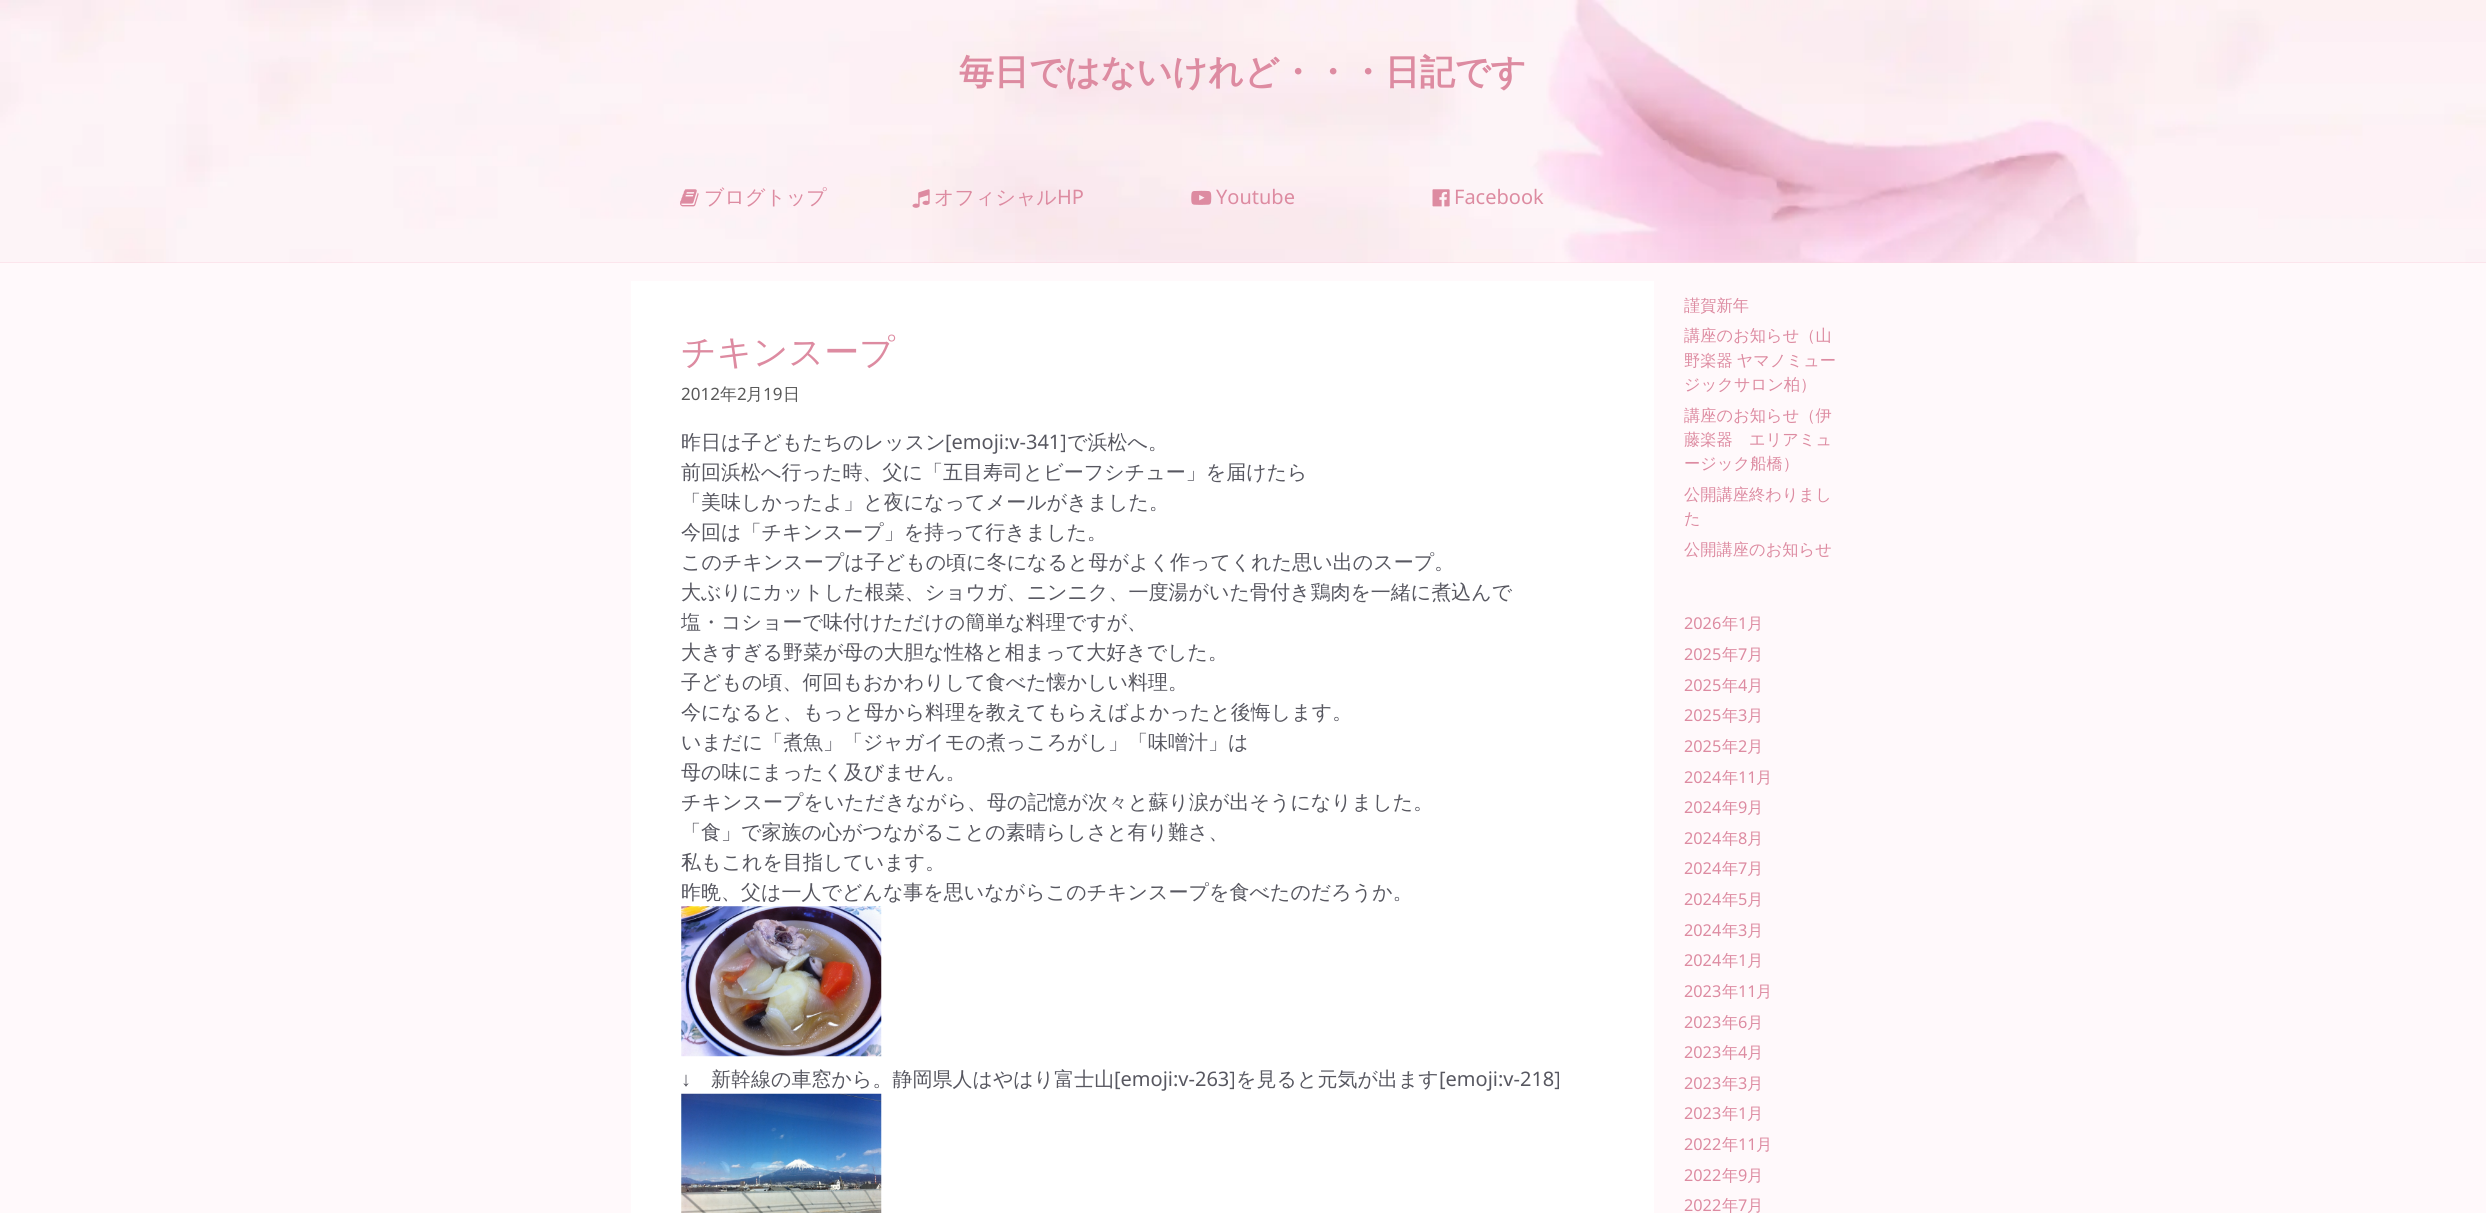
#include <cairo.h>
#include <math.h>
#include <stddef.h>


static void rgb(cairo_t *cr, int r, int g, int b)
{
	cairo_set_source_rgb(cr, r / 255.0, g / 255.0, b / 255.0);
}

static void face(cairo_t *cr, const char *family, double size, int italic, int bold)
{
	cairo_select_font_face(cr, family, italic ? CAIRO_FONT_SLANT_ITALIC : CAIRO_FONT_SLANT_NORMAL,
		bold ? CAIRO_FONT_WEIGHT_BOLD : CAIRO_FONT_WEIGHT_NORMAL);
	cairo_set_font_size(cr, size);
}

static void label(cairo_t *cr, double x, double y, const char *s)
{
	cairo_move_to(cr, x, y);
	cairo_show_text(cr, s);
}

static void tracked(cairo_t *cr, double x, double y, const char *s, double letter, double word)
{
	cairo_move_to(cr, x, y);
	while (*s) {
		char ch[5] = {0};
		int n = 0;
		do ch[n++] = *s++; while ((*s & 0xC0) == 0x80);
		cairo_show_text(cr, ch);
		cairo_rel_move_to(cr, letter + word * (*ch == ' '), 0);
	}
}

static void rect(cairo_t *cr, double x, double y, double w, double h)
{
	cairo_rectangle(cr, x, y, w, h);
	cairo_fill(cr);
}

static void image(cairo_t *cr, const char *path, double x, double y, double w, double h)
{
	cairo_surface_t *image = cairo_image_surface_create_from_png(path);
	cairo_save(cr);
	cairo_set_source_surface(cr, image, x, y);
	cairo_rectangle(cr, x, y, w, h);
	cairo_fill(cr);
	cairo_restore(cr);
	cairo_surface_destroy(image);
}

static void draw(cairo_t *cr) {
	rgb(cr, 255, 249, 251);
	cairo_paint(cr);
	rgb(cr, 251, 214, 225);
	rect(cr, 0, 262, 2486, 1);
	image(cr, "image0.png", 0, 0, 2486, 263);
	face(cr, "WenQuanYi Zen Hei", 35, 0, 1);
	rgb(cr, 221, 139, 161);
	label(cr, 959, 84, "毎日ではないけれど・・・日記です");
	image(cr, "image1.png", 680, 189, 19, 18);
	face(cr, "WenQuanYi Zen Hei Medium", 20, 0, 0);
	label(cr, 704, 204, "ブログトップ");
	image(cr, "image2.png", 912, 189, 18, 19);
	label(cr, 934, 204, "オフィシャル");
	face(cr, "Noto Sans", 20, 0, 0);
	label(cr, 1057, 204, "HP");
	image(cr, "image3.png", 1191, 190, 21, 15);
	label(cr, 1216, 204, "Youtube");
	image(cr, "image4.png", 1432, 189, 18, 18);
	label(cr, 1454, 204, "Facebook");
	rgb(cr, 255, 255, 255);
	rect(cr, 631, 281, 1023, 932);
	face(cr, "WenQuanYi Zen Hei Medium", 35, 0, 0);
	rgb(cr, 221, 139, 161);
	label(cr, 681, 364, "チキンスープ");
	face(cr, "Noto Sans", 17, 0, 0);
	rgb(cr, 89, 89, 89);
	label(cr, 681, 400, "2012");
	face(cr, "WenQuanYi Zen Hei Medium", 17, 0, 0);
	label(cr, 720, 400, "年");
	face(cr, "Noto Sans", 17, 0, 0);
	label(cr, 737, 400, "2");
	face(cr, "WenQuanYi Zen Hei Medium", 17, 0, 0);
	label(cr, 746, 400, "月");
	face(cr, "Noto Sans", 17, 0, 0);
	label(cr, 763, 400, "19");
	face(cr, "WenQuanYi Zen Hei Medium", 17, 0, 0);
	label(cr, 783, 400, "日");
	face(cr, "WenQuanYi Zen Hei Medium", 20, 0, 0);
	rgb(cr, 87, 87, 96);
	label(cr, 681, 449, "昨日は子どもたちのレッスン");
	face(cr, "Noto Sans", 20, 0, 0);
	label(cr, 945, 449, "[emoji:v-341]");
	face(cr, "WenQuanYi Zen Hei Medium", 20, 0, 0);
	label(cr, 1067, 449, "で浜松へ。");
	label(cr, 681, 479, "前回浜松へ行った時、父に「五目寿司とビーフシチュー」を届けたら");
	label(cr, 681, 509, "「美味しかったよ」と夜になってメールがきました。");
	label(cr, 681, 539, "今回は「チキンスープ」を持って行きました。");
	label(cr, 681, 569, "このチキンスープは子どもの頃に冬になると母がよく作ってくれた思い出のスープ。");
	label(cr, 681, 599, "大ぶりにカットした根菜、ショウガ、ニンニク、一度湯がいた骨付き鶏肉を一緒に煮込んで");
	label(cr, 681, 629, "塩・コショーで味付けただけの簡単な料理ですが、");
	label(cr, 681, 659, "大きすぎる野菜が母の大胆な性格と相まって大好きでした。");
	label(cr, 681, 689, "子どもの頃、何回もおかわりして食べた懐かしい料理。");
	label(cr, 681, 719, "今になると、もっと母から料理を教えてもらえばよかったと後悔します。");
	label(cr, 681, 749, "いまだに「煮魚」「ジャガイモの煮っころがし」「味噌汁」は");
	label(cr, 681, 779, "母の味にまったく及びません。");
	label(cr, 681, 809, "チキンスープをいただきながら、母の記憶が次々と蘇り涙が出そうになりました。");
	label(cr, 681, 839, "「食」で家族の心がつながることの素晴らしさと有り難さ、");
	label(cr, 681, 869, "私もこれを目指しています。");
	label(cr, 681, 899, "昨晩、父は一人でどんな事を思いながらこのチキンスープを食べたのだろうか。");
	image(cr, "image5.png", 681, 906, 201, 151);
	face(cr, "Liberation Sans", 20, 0, 0);
	label(cr, 681, 1086, "↓");
	face(cr, "WenQuanYi Zen Hei Medium", 20, 0, 0);
	label(cr, 711, 1086, "新幹線の車窓から。静岡県人はやはり富士山");
	face(cr, "Noto Sans", 20, 0, 0);
	label(cr, 1114, 1086, "[emoji:v-263]");
	face(cr, "WenQuanYi Zen Hei Medium", 20, 0, 0);
	label(cr, 1236, 1086, "を見ると元気が出ます");
	face(cr, "Noto Sans", 20, 0, 0);
	label(cr, 1439, 1086, "[emoji:v-218]");
	image(cr, "image6.png", 681, 1093, 201, 120);
	face(cr, "WenQuanYi Zen Hei Medium", 16.25, 0, 0);
	rgb(cr, 221, 139, 161);
	label(cr, 1684, 311, "謹賀新年");
	label(cr, 1684, 341, "講座のお知らせ（山");
	tracked(cr, 1684, 366, "野楽器 ヤマノミュー", 0, -1);
	label(cr, 1684, 390, "ジックサロン柏）");
	label(cr, 1684, 421, "講座のお知らせ（伊");
	label(cr, 1684, 445, "藤楽器　エリアミュ");
	label(cr, 1684, 469, "ージック船橋）");
	label(cr, 1684, 500, "公開講座終わりまし");
	label(cr, 1684, 524, "た");
	label(cr, 1684, 555, "公開講座のお知らせ");
	face(cr, "Noto Sans", 16.25, 0, 0);
	label(cr, 1684, 629, "2026");
	face(cr, "WenQuanYi Zen Hei Medium", 16.25, 0, 0);
	label(cr, 1722, 629, "年");
	face(cr, "Noto Sans", 16.25, 0, 0);
	label(cr, 1738, 629, "1");
	face(cr, "WenQuanYi Zen Hei Medium", 16.25, 0, 0);
	label(cr, 1747, 629, "月");
	face(cr, "Noto Sans", 16.25, 0, 0);
	label(cr, 1684, 660, "2025");
	face(cr, "WenQuanYi Zen Hei Medium", 16.25, 0, 0);
	label(cr, 1722, 660, "年");
	face(cr, "Noto Sans", 16.25, 0, 0);
	label(cr, 1738, 660, "7");
	face(cr, "WenQuanYi Zen Hei Medium", 16.25, 0, 0);
	label(cr, 1747, 660, "月");
	face(cr, "Noto Sans", 16.25, 0, 0);
	label(cr, 1684, 691, "2025");
	face(cr, "WenQuanYi Zen Hei Medium", 16.25, 0, 0);
	label(cr, 1722, 691, "年");
	face(cr, "Noto Sans", 16.25, 0, 0);
	label(cr, 1738, 691, "4");
	face(cr, "WenQuanYi Zen Hei Medium", 16.25, 0, 0);
	label(cr, 1747, 691, "月");
	face(cr, "Noto Sans", 16.25, 0, 0);
	label(cr, 1684, 721, "2025");
	face(cr, "WenQuanYi Zen Hei Medium", 16.25, 0, 0);
	label(cr, 1722, 721, "年");
	face(cr, "Noto Sans", 16.25, 0, 0);
	label(cr, 1738, 721, "3");
	face(cr, "WenQuanYi Zen Hei Medium", 16.25, 0, 0);
	label(cr, 1747, 721, "月");
	face(cr, "Noto Sans", 16.25, 0, 0);
	label(cr, 1684, 752, "2025");
	face(cr, "WenQuanYi Zen Hei Medium", 16.25, 0, 0);
	label(cr, 1722, 752, "年");
	face(cr, "Noto Sans", 16.25, 0, 0);
	label(cr, 1738, 752, "2");
	face(cr, "WenQuanYi Zen Hei Medium", 16.25, 0, 0);
	label(cr, 1747, 752, "月");
	face(cr, "Noto Sans", 16.25, 0, 0);
	label(cr, 1684, 783, "2024");
	face(cr, "WenQuanYi Zen Hei Medium", 16.25, 0, 0);
	label(cr, 1722, 783, "年");
	face(cr, "Noto Sans", 16.25, 0, 0);
	label(cr, 1738, 783, "11");
	face(cr, "WenQuanYi Zen Hei Medium", 16.25, 0, 0);
	label(cr, 1756, 783, "月");
	face(cr, "Noto Sans", 16.25, 0, 0);
	label(cr, 1684, 813, "2024");
	face(cr, "WenQuanYi Zen Hei Medium", 16.25, 0, 0);
	label(cr, 1722, 813, "年");
	face(cr, "Noto Sans", 16.25, 0, 0);
	label(cr, 1738, 813, "9");
	face(cr, "WenQuanYi Zen Hei Medium", 16.25, 0, 0);
	label(cr, 1747, 813, "月");
	face(cr, "Noto Sans", 16.25, 0, 0);
	label(cr, 1684, 844, "2024");
	face(cr, "WenQuanYi Zen Hei Medium", 16.25, 0, 0);
	label(cr, 1722, 844, "年");
	face(cr, "Noto Sans", 16.25, 0, 0);
	label(cr, 1738, 844, "8");
	face(cr, "WenQuanYi Zen Hei Medium", 16.25, 0, 0);
	label(cr, 1747, 844, "月");
	face(cr, "Noto Sans", 16.25, 0, 0);
	label(cr, 1684, 874, "2024");
	face(cr, "WenQuanYi Zen Hei Medium", 16.25, 0, 0);
	label(cr, 1722, 874, "年");
	face(cr, "Noto Sans", 16.25, 0, 0);
	label(cr, 1738, 874, "7");
	face(cr, "WenQuanYi Zen Hei Medium", 16.25, 0, 0);
	label(cr, 1747, 874, "月");
	face(cr, "Noto Sans", 16.25, 0, 0);
	label(cr, 1684, 905, "2024");
	face(cr, "WenQuanYi Zen Hei Medium", 16.25, 0, 0);
	label(cr, 1722, 905, "年");
	face(cr, "Noto Sans", 16.25, 0, 0);
	label(cr, 1738, 905, "5");
	face(cr, "WenQuanYi Zen Hei Medium", 16.25, 0, 0);
	label(cr, 1747, 905, "月");
	face(cr, "Noto Sans", 16.25, 0, 0);
	label(cr, 1684, 936, "2024");
	face(cr, "WenQuanYi Zen Hei Medium", 16.25, 0, 0);
	label(cr, 1722, 936, "年");
	face(cr, "Noto Sans", 16.25, 0, 0);
	label(cr, 1738, 936, "3");
	face(cr, "WenQuanYi Zen Hei Medium", 16.25, 0, 0);
	label(cr, 1747, 936, "月");
	face(cr, "Noto Sans", 16.25, 0, 0);
	label(cr, 1684, 966, "2024");
	face(cr, "WenQuanYi Zen Hei Medium", 16.25, 0, 0);
	label(cr, 1722, 966, "年");
	face(cr, "Noto Sans", 16.25, 0, 0);
	label(cr, 1738, 966, "1");
	face(cr, "WenQuanYi Zen Hei Medium", 16.25, 0, 0);
	label(cr, 1747, 966, "月");
	face(cr, "Noto Sans", 16.25, 0, 0);
	label(cr, 1684, 997, "2023");
	face(cr, "WenQuanYi Zen Hei Medium", 16.25, 0, 0);
	label(cr, 1722, 997, "年");
	face(cr, "Noto Sans", 16.25, 0, 0);
	label(cr, 1738, 997, "11");
	face(cr, "WenQuanYi Zen Hei Medium", 16.25, 0, 0);
	label(cr, 1756, 997, "月");
	face(cr, "Noto Sans", 16.25, 0, 0);
	label(cr, 1684, 1028, "2023");
	face(cr, "WenQuanYi Zen Hei Medium", 16.25, 0, 0);
	label(cr, 1722, 1028, "年");
	face(cr, "Noto Sans", 16.25, 0, 0);
	label(cr, 1738, 1028, "6");
	face(cr, "WenQuanYi Zen Hei Medium", 16.25, 0, 0);
	label(cr, 1747, 1028, "月");
	face(cr, "Noto Sans", 16.25, 0, 0);
	label(cr, 1684, 1058, "2023");
	face(cr, "WenQuanYi Zen Hei Medium", 16.25, 0, 0);
	label(cr, 1722, 1058, "年");
	face(cr, "Noto Sans", 16.25, 0, 0);
	label(cr, 1738, 1058, "4");
	face(cr, "WenQuanYi Zen Hei Medium", 16.25, 0, 0);
	label(cr, 1747, 1058, "月");
	face(cr, "Noto Sans", 16.25, 0, 0);
	label(cr, 1684, 1089, "2023");
	face(cr, "WenQuanYi Zen Hei Medium", 16.25, 0, 0);
	label(cr, 1722, 1089, "年");
	face(cr, "Noto Sans", 16.25, 0, 0);
	label(cr, 1738, 1089, "3");
	face(cr, "WenQuanYi Zen Hei Medium", 16.25, 0, 0);
	label(cr, 1747, 1089, "月");
	face(cr, "Noto Sans", 16.25, 0, 0);
	label(cr, 1684, 1119, "2023");
	face(cr, "WenQuanYi Zen Hei Medium", 16.25, 0, 0);
	label(cr, 1722, 1119, "年");
	face(cr, "Noto Sans", 16.25, 0, 0);
	label(cr, 1738, 1119, "1");
	face(cr, "WenQuanYi Zen Hei Medium", 16.25, 0, 0);
	label(cr, 1747, 1119, "月");
	face(cr, "Noto Sans", 16.25, 0, 0);
	label(cr, 1684, 1150, "2022");
	face(cr, "WenQuanYi Zen Hei Medium", 16.25, 0, 0);
	label(cr, 1722, 1150, "年");
	face(cr, "Noto Sans", 16.25, 0, 0);
	label(cr, 1738, 1150, "11");
	face(cr, "WenQuanYi Zen Hei Medium", 16.25, 0, 0);
	label(cr, 1756, 1150, "月");
	face(cr, "Noto Sans", 16.25, 0, 0);
	label(cr, 1684, 1181, "2022");
	face(cr, "WenQuanYi Zen Hei Medium", 16.25, 0, 0);
	label(cr, 1722, 1181, "年");
	face(cr, "Noto Sans", 16.25, 0, 0);
	label(cr, 1738, 1181, "9");
	face(cr, "WenQuanYi Zen Hei Medium", 16.25, 0, 0);
	label(cr, 1747, 1181, "月");
	face(cr, "Noto Sans", 16.25, 0, 0);
	label(cr, 1684, 1211, "2022");
	face(cr, "WenQuanYi Zen Hei Medium", 16.25, 0, 0);
	label(cr, 1722, 1211, "年");
	face(cr, "Noto Sans", 16.25, 0, 0);
	label(cr, 1738, 1211, "7");
	face(cr, "WenQuanYi Zen Hei Medium", 16.25, 0, 0);
	label(cr, 1747, 1211, "月");
}

int main(void) {
	cairo_surface_t *surface = cairo_image_surface_create(CAIRO_FORMAT_RGB24, 2486, 1213);
	cairo_t *cr = cairo_create(surface);
	cairo_font_options_t *options = cairo_font_options_create();
	cairo_font_options_set_hint_metrics(options, CAIRO_HINT_METRICS_OFF);
	cairo_font_options_set_hint_style(options, CAIRO_HINT_STYLE_NONE);
	cairo_set_font_options(cr, options);
	cairo_set_miter_limit(cr, 4);
	draw(cr);
	cairo_surface_write_to_png(surface, "render.png");
	cairo_font_options_destroy(options);
	cairo_destroy(cr);
	cairo_surface_destroy(surface);
	return 0;
}
